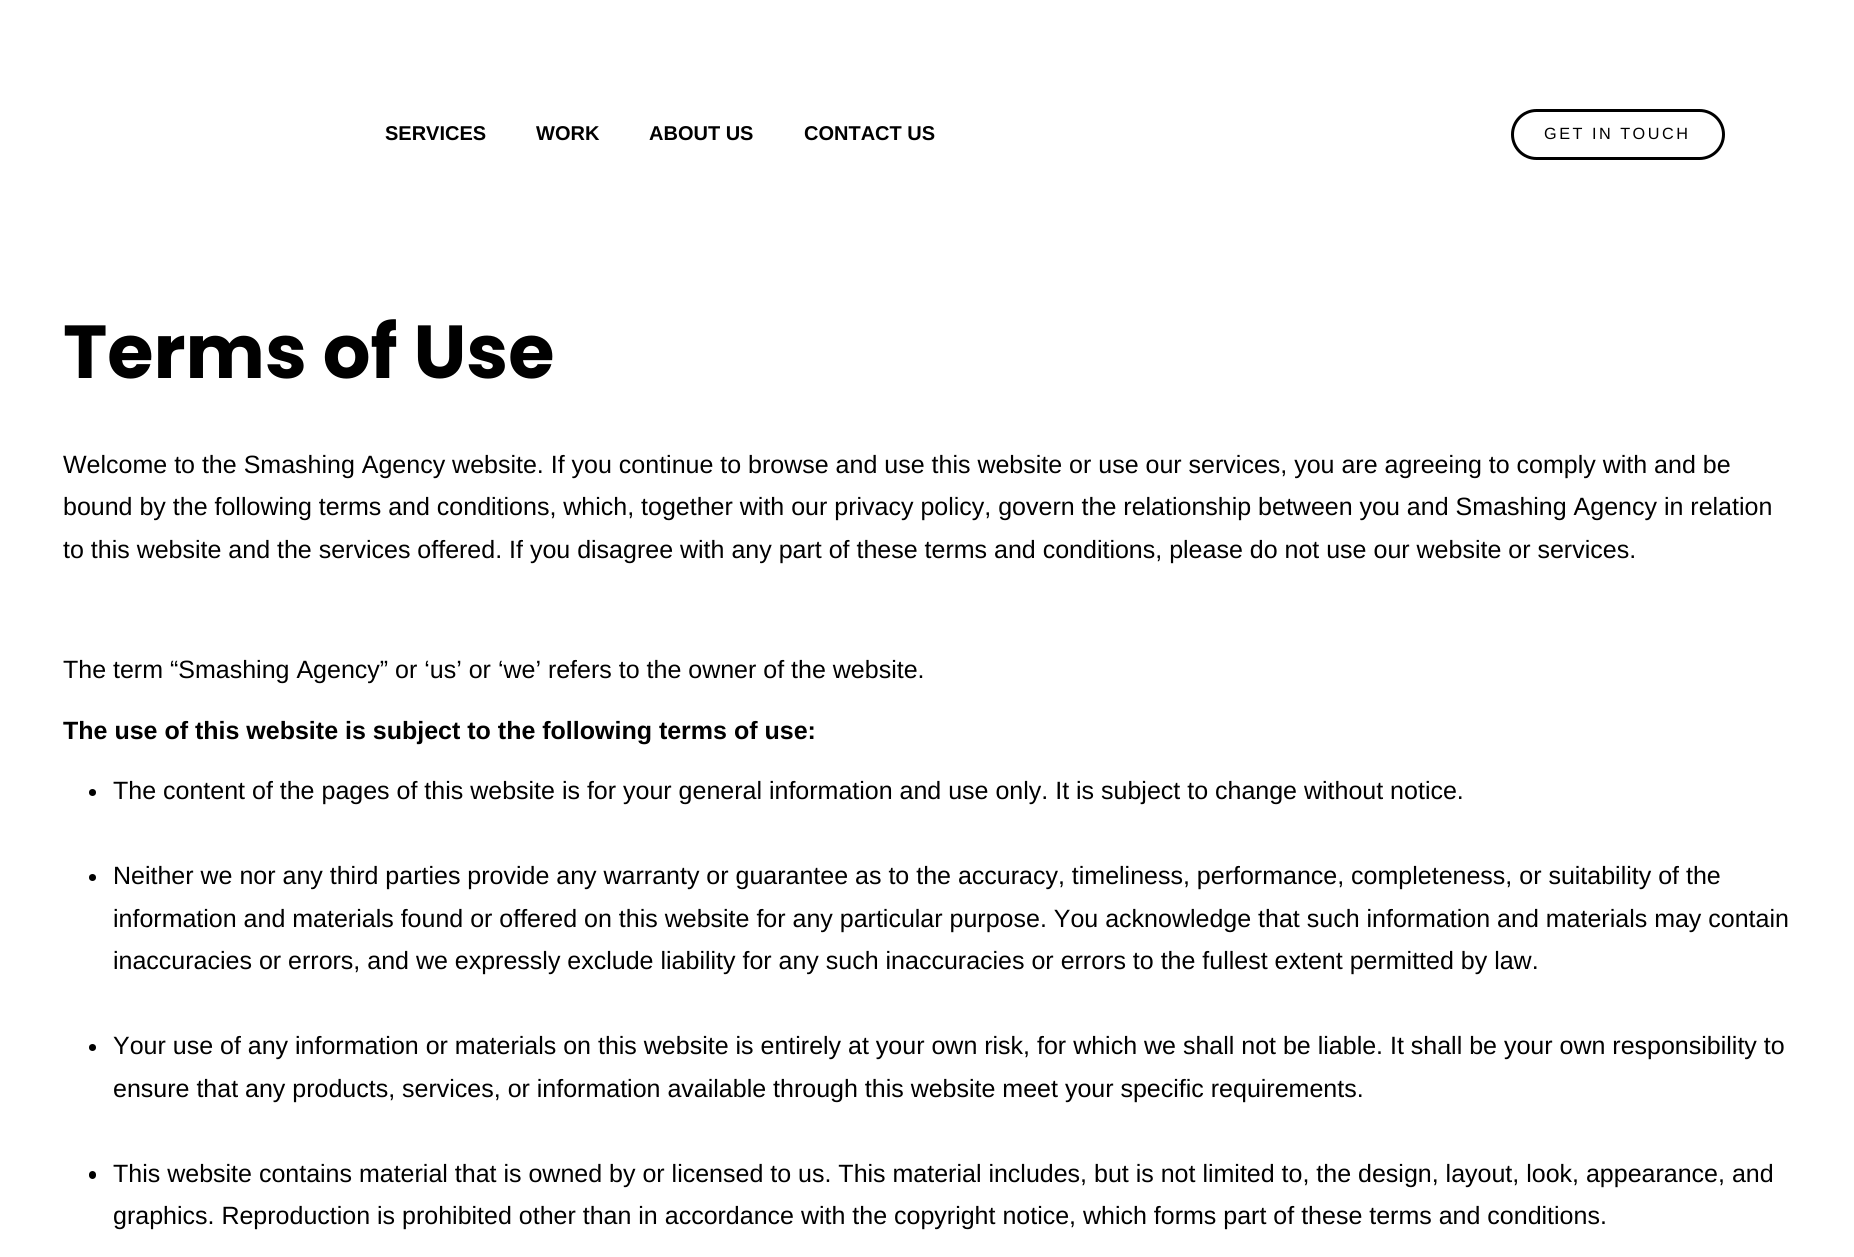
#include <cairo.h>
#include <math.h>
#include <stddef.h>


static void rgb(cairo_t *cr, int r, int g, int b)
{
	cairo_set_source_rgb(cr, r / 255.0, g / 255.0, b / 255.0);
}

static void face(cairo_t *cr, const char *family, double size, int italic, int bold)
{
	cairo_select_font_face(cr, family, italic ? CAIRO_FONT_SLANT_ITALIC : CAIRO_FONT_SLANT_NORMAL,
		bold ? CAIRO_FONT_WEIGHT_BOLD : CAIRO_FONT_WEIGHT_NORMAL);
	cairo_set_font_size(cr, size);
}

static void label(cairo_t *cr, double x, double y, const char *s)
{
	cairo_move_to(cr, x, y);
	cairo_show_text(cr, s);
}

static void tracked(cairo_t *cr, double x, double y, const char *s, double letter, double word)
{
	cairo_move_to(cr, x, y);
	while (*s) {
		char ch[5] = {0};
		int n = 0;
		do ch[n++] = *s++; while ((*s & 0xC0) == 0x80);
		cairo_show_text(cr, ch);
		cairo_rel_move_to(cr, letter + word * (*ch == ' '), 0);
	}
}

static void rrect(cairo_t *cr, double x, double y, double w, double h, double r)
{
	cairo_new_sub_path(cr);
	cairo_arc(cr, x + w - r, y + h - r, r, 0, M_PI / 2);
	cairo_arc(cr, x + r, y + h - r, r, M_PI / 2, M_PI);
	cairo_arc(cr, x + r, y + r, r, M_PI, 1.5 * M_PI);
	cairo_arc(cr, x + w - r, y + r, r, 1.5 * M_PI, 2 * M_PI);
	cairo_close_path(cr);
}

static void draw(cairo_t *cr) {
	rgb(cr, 255, 255, 255);
	cairo_paint(cr);
	face(cr, "Liberation Sans", 20, 0, 1);
	rgb(cr, 0, 0, 0);
	label(cr, 385, 140, "SERVICES");
	label(cr, 536, 140, "WORK");
	label(cr, 649, 140, "ABOUT US");
	label(cr, 804, 140, "CONTACT US");
	rrect(cr, 1512.5, 110.5, 211, 48, 24);
	cairo_set_line_width(cr, 3);
	cairo_stroke(cr);
	face(cr, "Liberation Sans", 16.25, 0, 0);
	tracked(cr, 1544, 139, "GET IN TOUCH", 2.5, 0);
	face(cr, "Poppins", 75, 0, 1);
	label(cr, 63, 378, "Terms of Use");
	face(cr, "Liberation Sans", 25, 0, 0);
	label(cr, 63, 473, "Welcome to the Smashing Agency website. If you continue to browse and use this website or use our services, you are agreeing to comply with and be");
	label(cr, 63, 515, "bound by the following terms and conditions, which, together with our privacy policy, govern the relationship between you and Smashing Agency in relation");
	label(cr, 63, 558, "to this website and the services offered. If you disagree with any part of these terms and conditions, please do not use our website or services.");
	label(cr, 63, 678, "The term “Smashing Agency” or ‘us’ or ‘we’ refers to the owner of the website.");
	face(cr, "Liberation Sans", 25, 0, 1);
	label(cr, 63, 739, "The use of this website is subject to the following terms of use:");
	cairo_new_path(cr);
	cairo_arc(cr, 92.5, 792.5, 3.5, 0, 2 * M_PI);
	cairo_fill(cr);
	face(cr, "Liberation Sans", 25, 0, 0);
	label(cr, 113, 799, "The content of the pages of this website is for your general information and use only. It is subject to change without notice.");
	cairo_new_path(cr);
	cairo_arc(cr, 92.5, 877.5, 3.5, 0, 2 * M_PI);
	cairo_fill(cr);
	label(cr, 113, 884, "Neither we nor any third parties provide any warranty or guarantee as to the accuracy, timeliness, performance, completeness, or suitability of the");
	label(cr, 113, 927, "information and materials found or offered on this website for any particular purpose. You acknowledge that such information and materials may contain");
	label(cr, 113, 969, "inaccuracies or errors, and we expressly exclude liability for any such inaccuracies or errors to the fullest extent permitted by law.");
	cairo_new_path(cr);
	cairo_arc(cr, 92.5, 1047.5, 3.5, 0, 2 * M_PI);
	cairo_fill(cr);
	label(cr, 113, 1054, "Your use of any information or materials on this website is entirely at your own risk, for which we shall not be liable. It shall be your own responsibility to");
	label(cr, 113, 1097, "ensure that any products, services, or information available through this website meet your specific requirements.");
	rrect(cr, 89, 1171, 7, 8, 3.5);
	cairo_fill(cr);
	label(cr, 113, 1182, "This website contains material that is owned by or licensed to us. This material includes, but is not limited to, the design, layout, look, appearance, and");
	label(cr, 113, 1224, "graphics. Reproduction is prohibited other than in accordance with the copyright notice, which forms part of these terms and conditions.");
}

int main(void) {
	cairo_surface_t *surface = cairo_image_surface_create(CAIRO_FORMAT_RGB24, 1854, 1257);
	cairo_t *cr = cairo_create(surface);
	cairo_font_options_t *options = cairo_font_options_create();
	cairo_font_options_set_hint_metrics(options, CAIRO_HINT_METRICS_OFF);
	cairo_font_options_set_hint_style(options, CAIRO_HINT_STYLE_NONE);
	cairo_set_font_options(cr, options);
	cairo_set_miter_limit(cr, 4);
	draw(cr);
	cairo_surface_write_to_png(surface, "render.png");
	cairo_font_options_destroy(options);
	cairo_destroy(cr);
	cairo_surface_destroy(surface);
	return 0;
}
